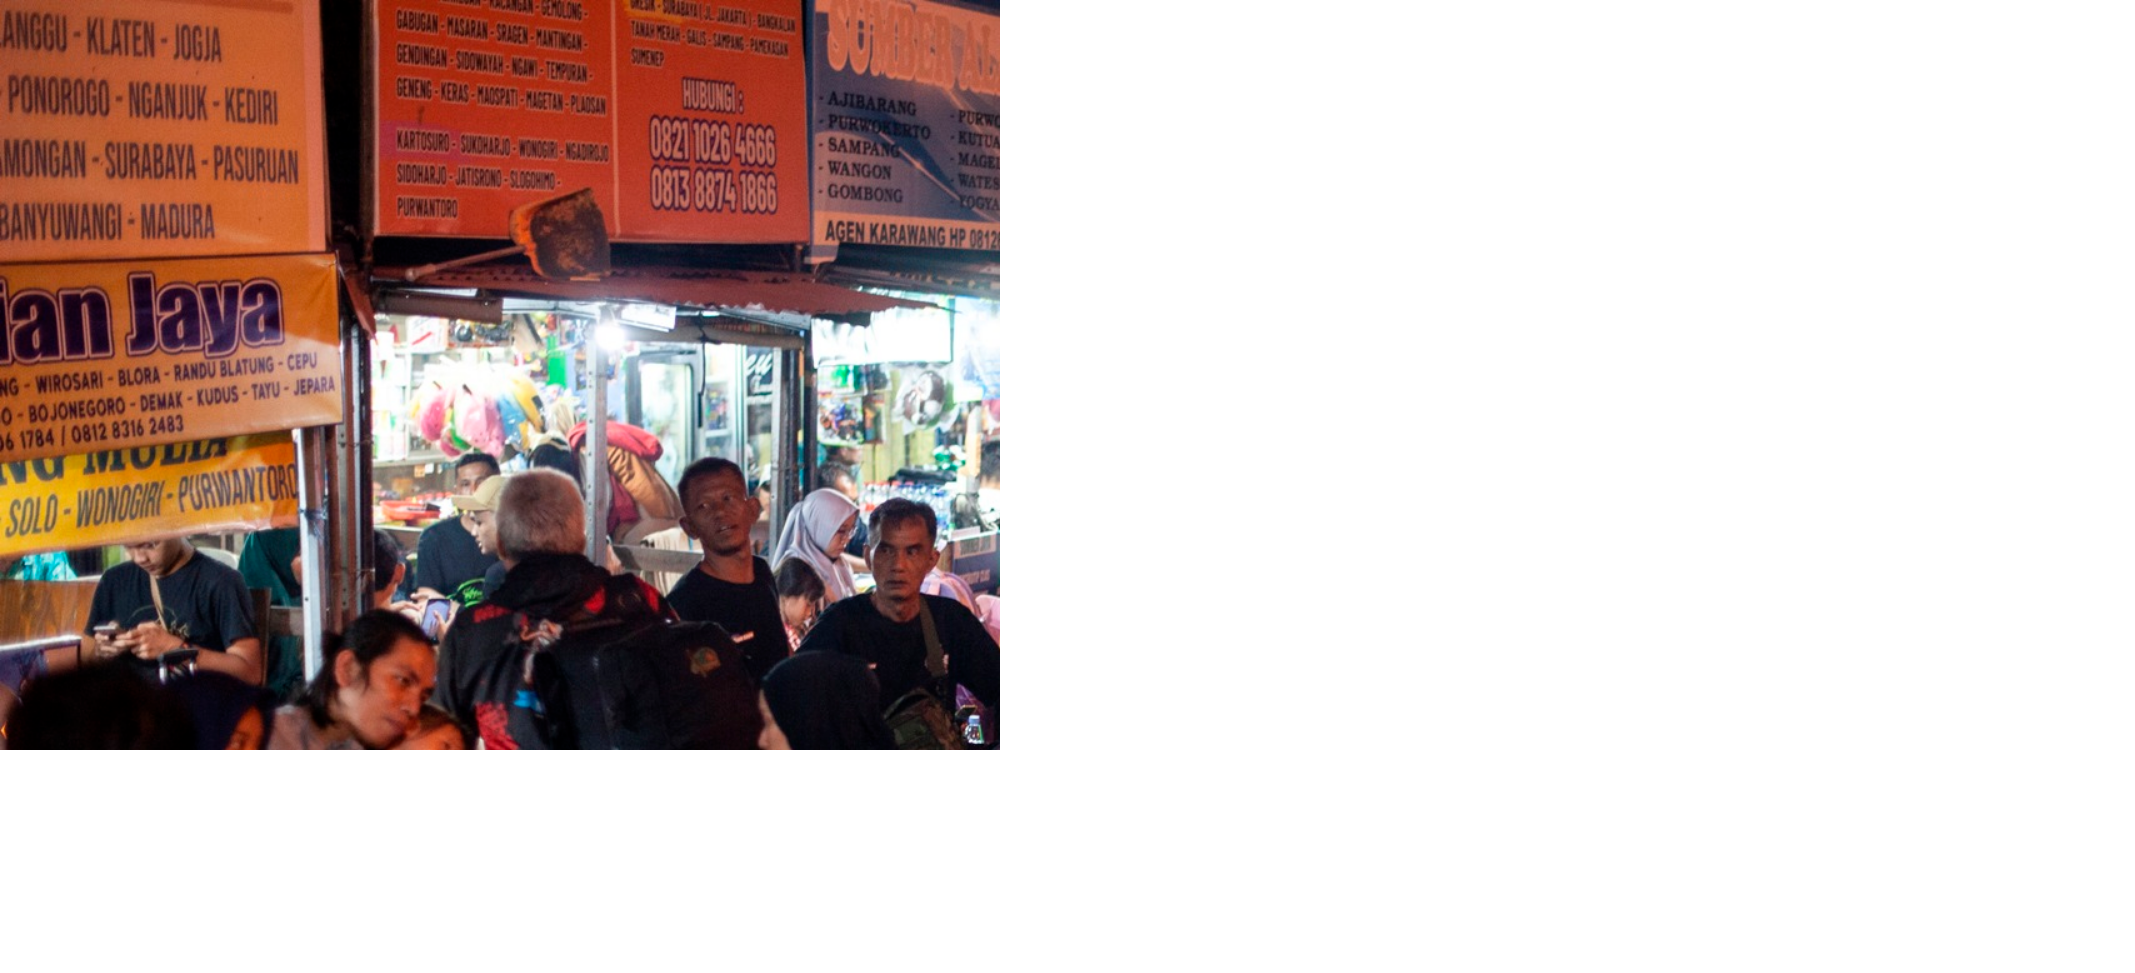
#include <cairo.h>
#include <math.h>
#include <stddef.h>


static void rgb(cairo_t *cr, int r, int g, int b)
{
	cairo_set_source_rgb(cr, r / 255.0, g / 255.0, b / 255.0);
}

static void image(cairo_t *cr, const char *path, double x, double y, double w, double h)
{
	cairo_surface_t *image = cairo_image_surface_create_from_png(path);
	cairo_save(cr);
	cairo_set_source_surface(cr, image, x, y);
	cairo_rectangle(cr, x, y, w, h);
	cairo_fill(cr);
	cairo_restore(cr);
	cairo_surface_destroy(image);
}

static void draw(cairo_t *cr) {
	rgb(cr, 255, 255, 255);
	cairo_paint(cr);
	image(cr, "image0.png", 0, 0, 1000, 750);
}

int main(void) {
	cairo_surface_t *surface = cairo_image_surface_create(CAIRO_FORMAT_RGB24, 2135, 973);
	cairo_t *cr = cairo_create(surface);
	cairo_font_options_t *options = cairo_font_options_create();
	cairo_font_options_set_hint_metrics(options, CAIRO_HINT_METRICS_OFF);
	cairo_font_options_set_hint_style(options, CAIRO_HINT_STYLE_NONE);
	cairo_set_font_options(cr, options);
	cairo_set_miter_limit(cr, 4);
	draw(cr);
	cairo_surface_write_to_png(surface, "render.png");
	cairo_font_options_destroy(options);
	cairo_destroy(cr);
	cairo_surface_destroy(surface);
	return 0;
}
